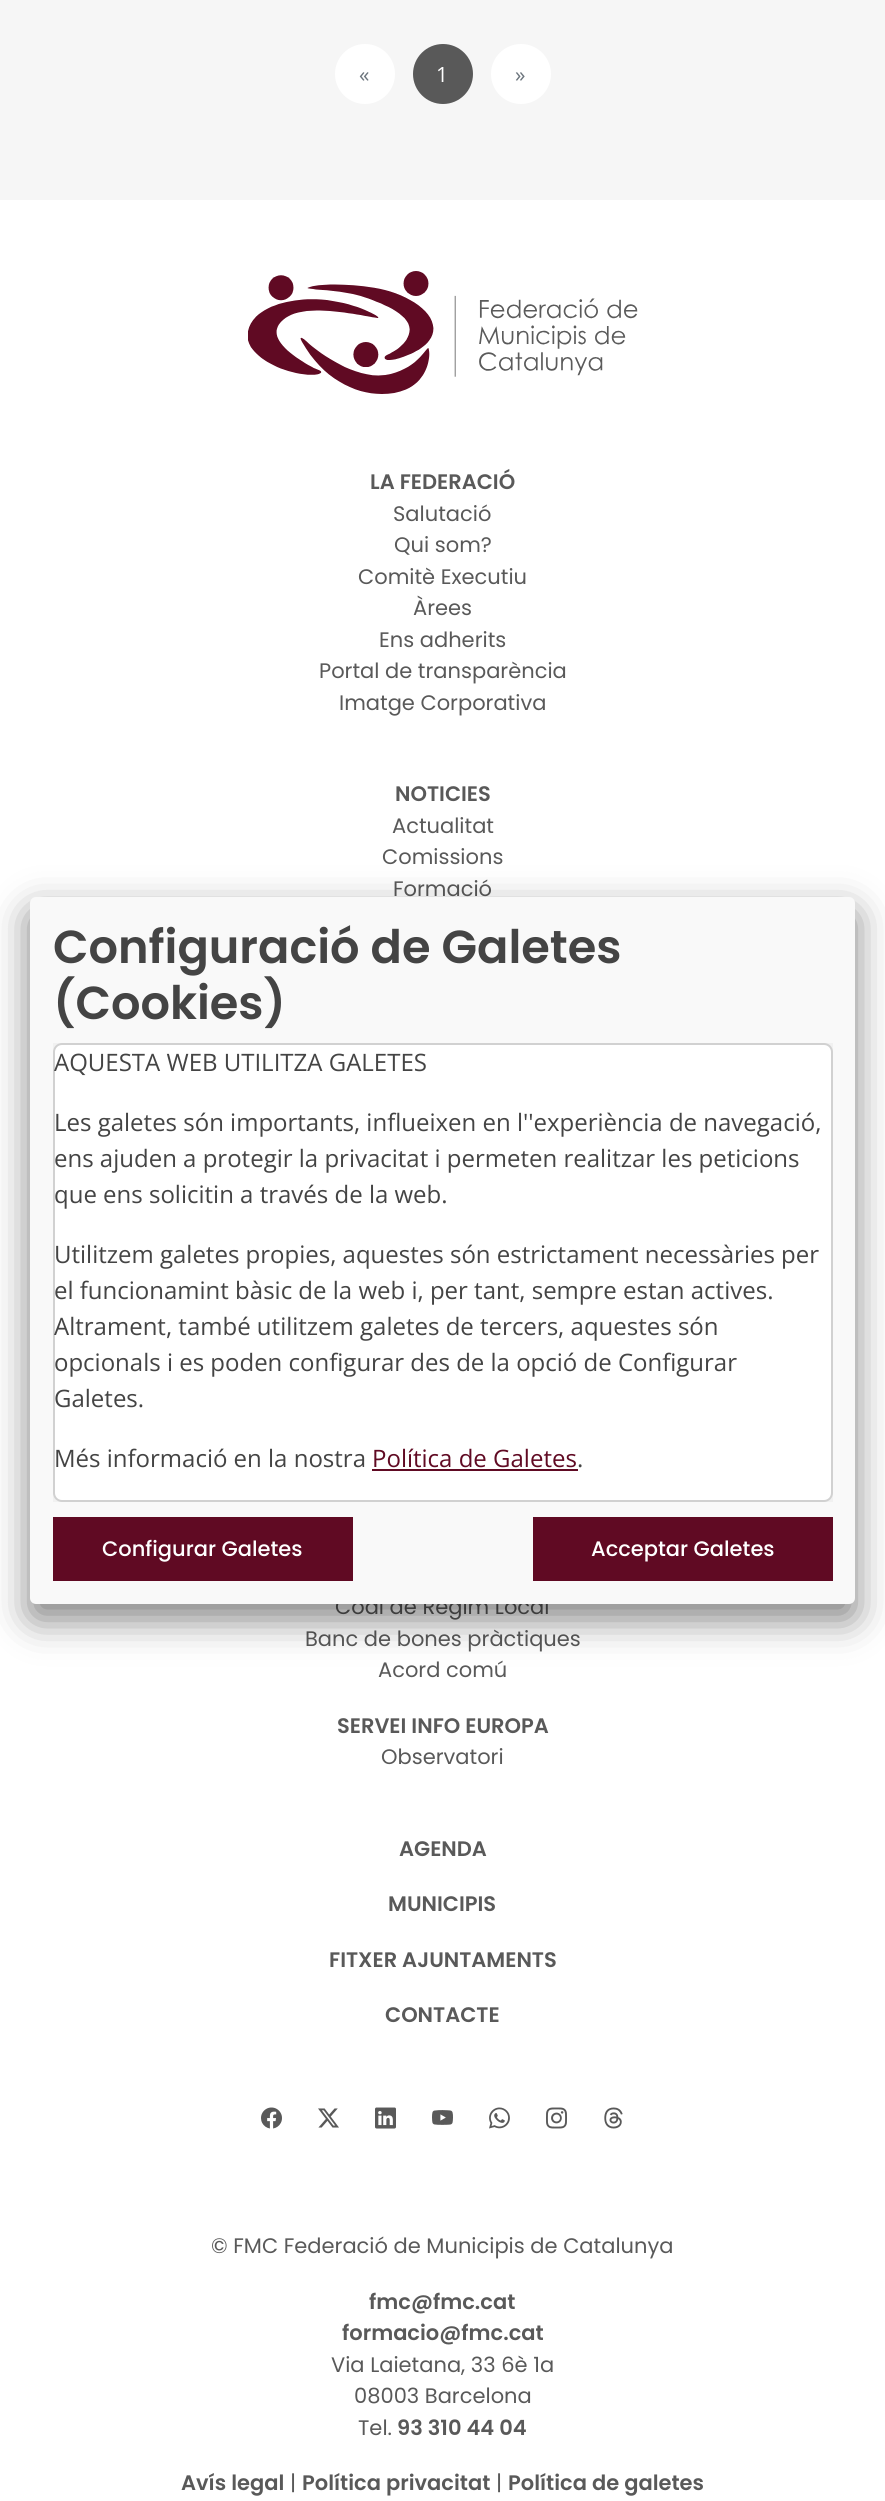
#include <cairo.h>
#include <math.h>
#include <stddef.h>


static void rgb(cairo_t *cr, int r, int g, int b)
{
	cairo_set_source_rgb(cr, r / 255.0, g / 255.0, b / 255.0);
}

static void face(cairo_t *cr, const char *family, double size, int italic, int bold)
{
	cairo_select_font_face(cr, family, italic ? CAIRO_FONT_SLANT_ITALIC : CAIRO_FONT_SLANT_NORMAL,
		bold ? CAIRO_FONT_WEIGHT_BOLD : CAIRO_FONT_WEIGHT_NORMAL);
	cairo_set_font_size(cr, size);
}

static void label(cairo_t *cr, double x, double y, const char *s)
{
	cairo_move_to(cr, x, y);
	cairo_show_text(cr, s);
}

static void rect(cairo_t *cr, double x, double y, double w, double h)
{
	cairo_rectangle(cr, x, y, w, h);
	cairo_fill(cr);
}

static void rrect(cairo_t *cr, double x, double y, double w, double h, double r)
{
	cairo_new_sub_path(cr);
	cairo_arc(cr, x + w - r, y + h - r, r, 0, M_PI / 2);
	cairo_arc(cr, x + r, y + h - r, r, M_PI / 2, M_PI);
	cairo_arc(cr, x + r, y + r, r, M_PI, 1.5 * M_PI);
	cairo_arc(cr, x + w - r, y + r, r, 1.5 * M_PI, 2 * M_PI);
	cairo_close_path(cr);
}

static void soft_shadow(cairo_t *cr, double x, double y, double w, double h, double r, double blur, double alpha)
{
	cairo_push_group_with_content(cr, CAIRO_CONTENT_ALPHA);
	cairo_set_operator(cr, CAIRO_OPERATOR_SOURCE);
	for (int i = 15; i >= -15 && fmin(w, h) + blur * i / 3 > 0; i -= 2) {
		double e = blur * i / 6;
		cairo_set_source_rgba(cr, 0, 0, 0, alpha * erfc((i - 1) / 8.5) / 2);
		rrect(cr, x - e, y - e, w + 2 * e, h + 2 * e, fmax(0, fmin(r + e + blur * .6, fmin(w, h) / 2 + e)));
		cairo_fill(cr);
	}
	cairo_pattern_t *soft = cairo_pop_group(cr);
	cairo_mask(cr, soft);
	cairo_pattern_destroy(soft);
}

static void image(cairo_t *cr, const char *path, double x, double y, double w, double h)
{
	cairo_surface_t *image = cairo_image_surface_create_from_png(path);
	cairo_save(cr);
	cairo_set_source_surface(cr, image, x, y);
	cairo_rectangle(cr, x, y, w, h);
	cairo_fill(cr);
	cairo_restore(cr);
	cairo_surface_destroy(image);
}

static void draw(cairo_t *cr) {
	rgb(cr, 246, 246, 246);
	cairo_paint(cr);
	rgb(cr, 255, 255, 255);
	cairo_arc(cr, 365, 74, 30, 0, 2 * M_PI);
	cairo_fill(cr);
	face(cr, "Open Sans", 21, 0, 0);
	rgb(cr, 108, 117, 125);
	label(cr, 359, 82, "«");
	rgb(cr, 89, 89, 89);
	cairo_new_path(cr);
	cairo_arc(cr, 443, 74, 30, 0, 2 * M_PI);
	cairo_fill(cr);
	rgb(cr, 255, 255, 255);
	label(cr, 436, 82, "1");
	cairo_new_path(cr);
	cairo_arc(cr, 521, 74, 30, 0, 2 * M_PI);
	cairo_fill(cr);
	rgb(cr, 108, 117, 125);
	label(cr, 515, 82, "»");
	rgb(cr, 255, 255, 255);
	rect(cr, 0, 200, 885, 2301);
	image(cr, "image0.png", 248, 271, 390, 123);
	face(cr, "Poppins SemiBold", 21, 0, 0);
	rgb(cr, 89, 89, 89);
	label(cr, 370, 489, "LA FEDERACIÓ");
	face(cr, "Poppins", 21, 0, 0);
	label(cr, 393, 521, "Salutació");
	label(cr, 394, 552, "Qui som?");
	label(cr, 358, 584, "Comitè Executiu");
	label(cr, 413, 615, "Àrees");
	label(cr, 379, 647, "Ens adherits");
	label(cr, 319, 678, "Portal de transparència");
	label(cr, 339, 710, "Imatge Corporativa");
	face(cr, "Poppins SemiBold", 21, 0, 0);
	label(cr, 395, 801, "NOTICIES");
	face(cr, "Poppins", 21, 0, 0);
	label(cr, 392, 833, "Actualitat");
	label(cr, 382, 864, "Comissions");
	label(cr, 393, 896, "Formació");
	label(cr, 335, 1614, "Codi de Regim Local");
	label(cr, 305, 1646, "Banc de bones pràctiques");
	label(cr, 378, 1677, "Acord comú");
	face(cr, "Poppins SemiBold", 21, 0, 0);
	label(cr, 337, 1733, "SERVEI INFO EUROPA");
	face(cr, "Poppins", 21, 0, 0);
	label(cr, 381, 1764, "Observatori");
	face(cr, "Poppins SemiBold", 21, 0, 0);
	label(cr, 399, 1856, "AGENDA");
	label(cr, 388, 1911, "MUNICIPIS");
	label(cr, 329, 1967, "FITXER AJUNTAMENTS");
	label(cr, 385, 2022, "CONTACTE");
	image(cr, "image1.png", 261, 2107, 21, 22);
	image(cr, "image2.png", 318, 2108, 21, 20);
	image(cr, "image3.png", 375, 2107, 21, 22);
	image(cr, "image4.png", 432, 2110, 21, 15);
	image(cr, "image5.png", 489, 2107, 21, 22);
	image(cr, "image6.png", 546, 2107, 21, 22);
	image(cr, "image7.png", 604, 2107, 19, 22);
	face(cr, "Poppins", 21, 0, 0);
	label(cr, 211, 2253, "© FMC Federació de Municipis de Catalunya");
	face(cr, "Poppins SemiBold", 21, 0, 0);
	label(cr, 369, 2309, "fmc@fmc.cat");
	label(cr, 342, 2340, "formacio@fmc.cat");
	face(cr, "Poppins", 21, 0, 0);
	label(cr, 331, 2372, "Via Laietana, 33 6è 1a");
	label(cr, 354, 2403, "08003 Barcelona");
	label(cr, 358, 2435, "Tel.");
	face(cr, "Poppins SemiBold", 21, 0, 0);
	label(cr, 397, 2435, "93 310 44 04");
	label(cr, 181, 2490, "Avís legal");
	face(cr, "Poppins", 21, 0, 0);
	label(cr, 290, 2490, "|");
	face(cr, "Poppins SemiBold", 21, 0, 0);
	label(cr, 302, 2490, "Política privacitat");
	face(cr, "Poppins", 21, 0, 0);
	label(cr, 496, 2490, "|");
	face(cr, "Poppins SemiBold", 21, 0, 0);
	label(cr, 508, 2490, "Política de galetes");
	rgb(cr, 0, 0, 0);
	soft_shadow(cr, 30, 912, 825, 707, 6, 19, 0.5);
	rgb(cr, 249, 249, 249);
	rrect(cr, 30, 897, 825, 707, 6);
	cairo_fill(cr);
	face(cr, "Poppins SemiBold", 46.25, 0, 0);
	rgb(cr, 68, 68, 68);
	label(cr, 53, 963, "Configuració de Galetes");
	label(cr, 53, 1019, "(Cookies)");
	rgb(cr, 241, 241, 241);
	rect(cr, 53, 1043, 780, 459);
	rgb(cr, 255, 255, 255);
	rrect(cr, 53, 1043, 780, 459, 9);
	cairo_fill(cr);
	rrect(cr, 54, 1044, 778, 457, 8);
	cairo_set_source_rgba(cr, 0, 0, 0, 0.18);
	cairo_stroke(cr);
	face(cr, "Open Sans", 24, 0, 0);
	rgb(cr, 68, 68, 68);
	label(cr, 54, 1071, "AQUESTA WEB UTILITZA GALETES");
	label(cr, 54, 1131, "Les galetes són importants, influeixen en l''experiència de navegació,");
	label(cr, 54, 1167, "ens ajuden a protegir la privacitat i permeten realitzar les peticions");
	label(cr, 54, 1203, "que ens solicitin a través de la web.");
	label(cr, 54, 1263, "Utilitzem galetes propies, aquestes són estrictament necessàries per");
	label(cr, 54, 1299, "el funcionamint bàsic de la web i, per tant, sempre estan actives.");
	label(cr, 54, 1335, "Altrament, també utilitzem galetes de tercers, aquestes són");
	label(cr, 54, 1371, "opcionals i es poden configurar des de la opció de Configurar");
	label(cr, 54, 1407, "Galetes.");
	label(cr, 54, 1467, "Més informació en la nostra");
	rgb(cr, 96, 10, 35);
	label(cr, 372, 1467, "Política de Galetes");
	rect(cr, 372, 1469, 206, 2);
	rgb(cr, 68, 68, 68);
	label(cr, 577, 1467, ".");
	rgb(cr, 96, 10, 35);
	rect(cr, 53, 1517, 300, 64);
	face(cr, "Poppins Medium", 21, 0, 0);
	rgb(cr, 255, 255, 255);
	label(cr, 102, 1556, "Configurar Galetes");
	rgb(cr, 96, 10, 35);
	rect(cr, 533, 1517, 300, 64);
	rgb(cr, 255, 255, 255);
	label(cr, 591, 1556, "Acceptar Galetes");
}

int main(void) {
	cairo_surface_t *surface = cairo_image_surface_create(CAIRO_FORMAT_RGB24, 885, 2501);
	cairo_t *cr = cairo_create(surface);
	cairo_font_options_t *options = cairo_font_options_create();
	cairo_font_options_set_hint_metrics(options, CAIRO_HINT_METRICS_OFF);
	cairo_font_options_set_hint_style(options, CAIRO_HINT_STYLE_NONE);
	cairo_set_font_options(cr, options);
	cairo_set_miter_limit(cr, 4);
	draw(cr);
	cairo_surface_write_to_png(surface, "render.png");
	cairo_font_options_destroy(options);
	cairo_destroy(cr);
	cairo_surface_destroy(surface);
	return 0;
}
